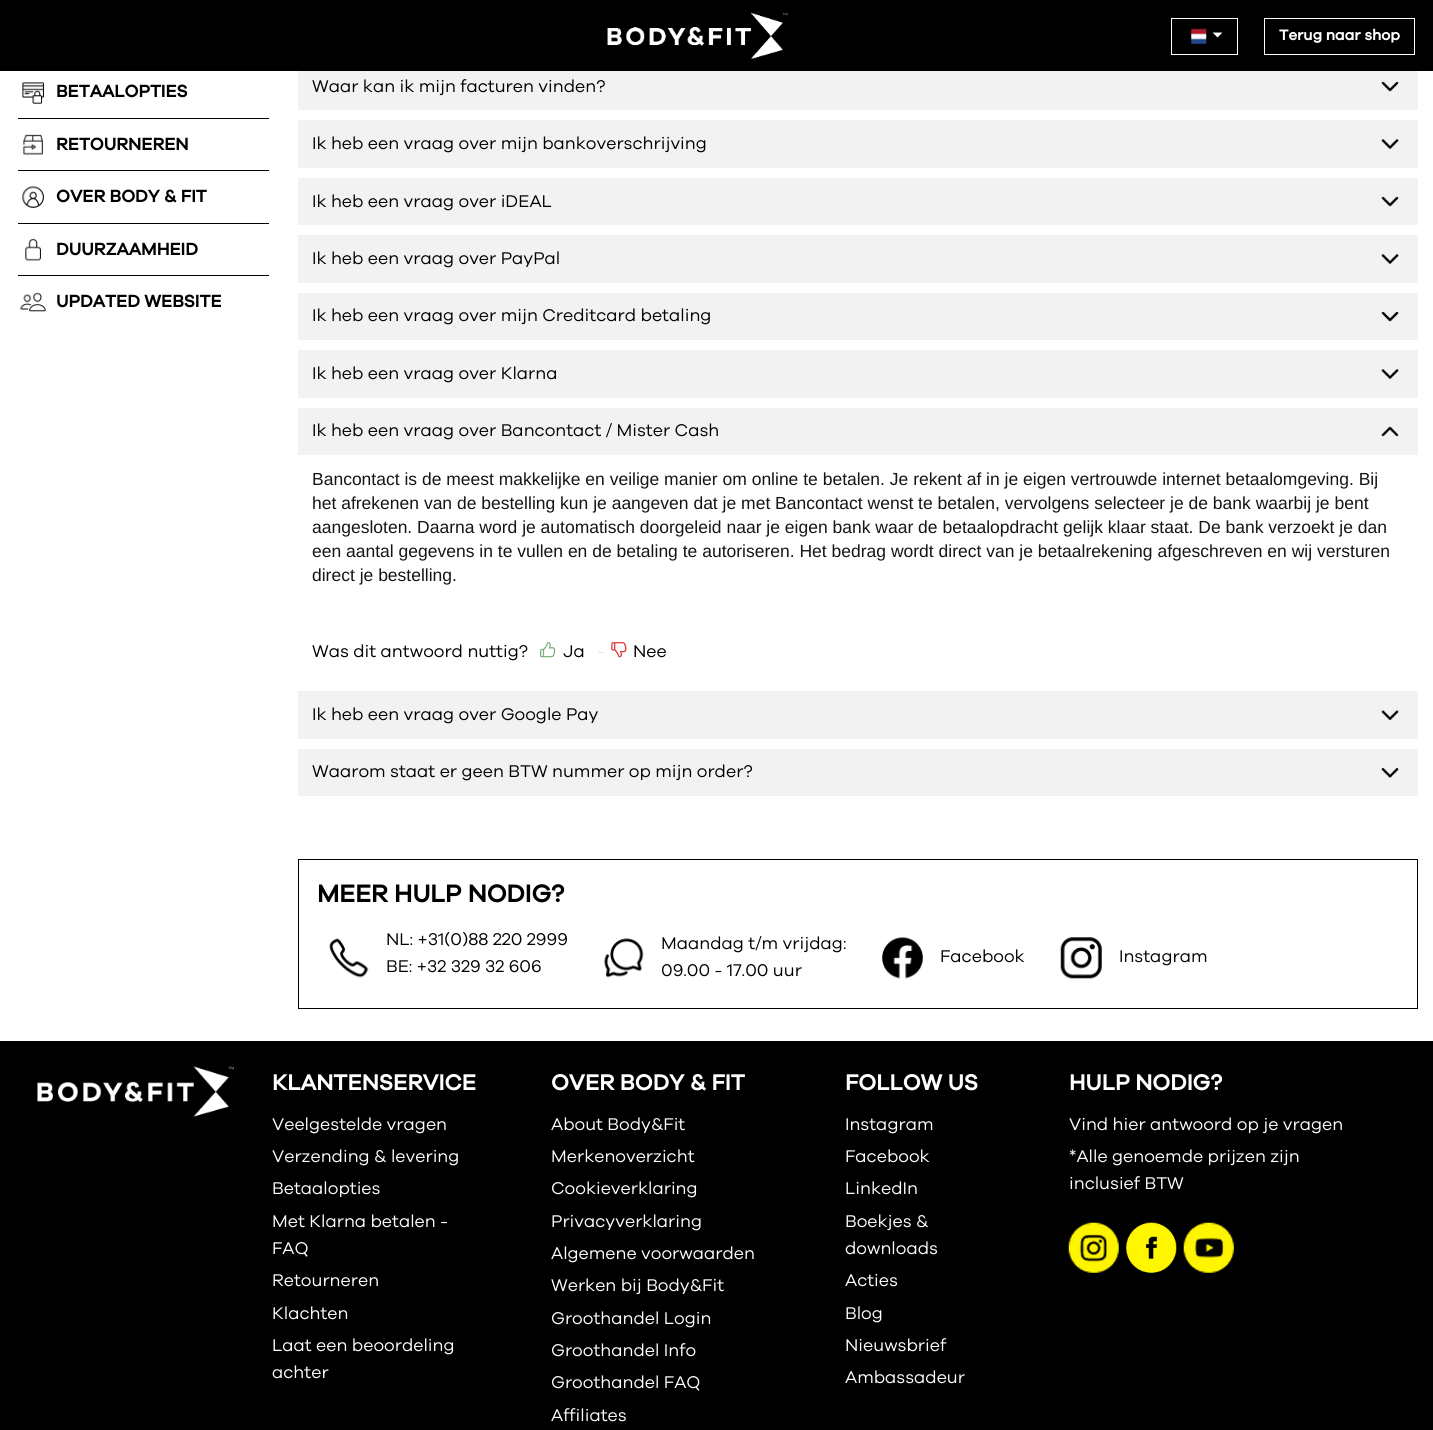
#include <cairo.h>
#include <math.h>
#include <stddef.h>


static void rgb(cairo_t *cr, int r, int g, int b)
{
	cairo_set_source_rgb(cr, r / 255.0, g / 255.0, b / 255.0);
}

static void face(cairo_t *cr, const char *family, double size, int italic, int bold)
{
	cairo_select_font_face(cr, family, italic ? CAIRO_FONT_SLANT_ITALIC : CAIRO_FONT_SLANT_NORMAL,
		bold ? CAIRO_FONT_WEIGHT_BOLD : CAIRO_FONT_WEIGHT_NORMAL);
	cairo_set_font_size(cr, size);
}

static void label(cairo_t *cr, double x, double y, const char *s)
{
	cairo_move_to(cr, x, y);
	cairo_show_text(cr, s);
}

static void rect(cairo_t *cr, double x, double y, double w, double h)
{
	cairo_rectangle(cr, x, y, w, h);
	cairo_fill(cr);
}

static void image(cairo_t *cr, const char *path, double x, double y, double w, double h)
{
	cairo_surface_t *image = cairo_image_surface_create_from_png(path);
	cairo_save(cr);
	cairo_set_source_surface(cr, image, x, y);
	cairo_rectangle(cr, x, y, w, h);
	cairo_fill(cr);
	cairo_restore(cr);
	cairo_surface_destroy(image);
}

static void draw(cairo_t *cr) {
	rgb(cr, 255, 255, 255);
	cairo_paint(cr);
	rgb(cr, 0, 0, 0);
	rect(cr, 0, 0, 1433, 71);
	image(cr, "image0.png", 607, 12, 181, 48);
	cairo_rectangle(cr, 1171.5, 18.5, 66, 36);
	rgb(cr, 255, 255, 255);
	cairo_set_line_width(cr, 1);
	cairo_stroke(cr);
	image(cr, "image1.png", 1191, 28, 16, 16);
	cairo_new_path(cr);
	cairo_move_to(cr, 1212.5, 32.5);
	cairo_line_to(cr, 1222.5, 32.5);
	cairo_line_to(cr, 1217.5, 37.5);
	cairo_close_path(cr);
	cairo_fill(cr);
	cairo_rectangle(cr, 1264.5, 18.5, 150, 36);
	cairo_stroke(cr);
	face(cr, "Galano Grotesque", 15, 0, 1);
	label(cr, 1279, 40, "Terug naar shop");
	image(cr, "image2.png", 22, 82, 23, 22);
	face(cr, "Galano Grotesque", 17.5, 0, 1);
	rgb(cr, 0, 0, 0);
	label(cr, 56, 97, "BETAALOPTIES");
	rect(cr, 18, 118, 251, 1);
	image(cr, "image3.png", 23, 134, 20, 21);
	label(cr, 56, 150, "RETOURNEREN");
	rect(cr, 18, 170, 251, 1);
	image(cr, "image4.png", 22, 186, 22, 22);
	label(cr, 56, 202, "OVER BODY & FIT");
	rect(cr, 18, 223, 251, 1);
	image(cr, "image5.png", 25, 238, 16, 23);
	label(cr, 56, 255, "DUURZAAMHEID");
	rect(cr, 18, 275, 251, 1);
	image(cr, "image6.png", 20, 292, 26, 20);
	label(cr, 56, 307, "UPDATED WEBSITE");
	rgb(cr, 242, 242, 242);
	rect(cr, 298, 71, 1120, 39);
	face(cr, "Galano Grotesque", 17.5, 0, 0);
	rgb(cr, 0, 0, 0);
	label(cr, 312, 92, "Waar kan ik mijn facturen vinden?");
	image(cr, "image7.png", 1381, 81, 18, 11);
	rgb(cr, 242, 242, 242);
	rect(cr, 298, 120, 1120, 48);
	rgb(cr, 0, 0, 0);
	label(cr, 312, 149, "Ik heb een vraag over mijn bankoverschrijving");
	image(cr, "image8.png", 1381, 139, 18, 10);
	rgb(cr, 242, 242, 242);
	rect(cr, 298, 178, 1120, 47);
	rgb(cr, 0, 0, 0);
	label(cr, 312, 207, "Ik heb een vraag over iDEAL");
	image(cr, "image7.png", 1381, 196, 18, 11);
	rgb(cr, 242, 242, 242);
	rect(cr, 298, 235, 1120, 48);
	rgb(cr, 0, 0, 0);
	label(cr, 312, 264, "Ik heb een vraag over PayPal");
	image(cr, "image8.png", 1381, 254, 18, 10);
	rgb(cr, 242, 242, 242);
	rect(cr, 298, 293, 1120, 47);
	rgb(cr, 0, 0, 0);
	label(cr, 312, 321, "Ik heb een vraag over mijn Creditcard betaling");
	image(cr, "image7.png", 1381, 311, 18, 11);
	rgb(cr, 242, 242, 242);
	rect(cr, 298, 350, 1120, 48);
	rgb(cr, 0, 0, 0);
	label(cr, 312, 379, "Ik heb een vraag over Klarna");
	image(cr, "image8.png", 1381, 369, 18, 10);
	rgb(cr, 242, 242, 242);
	rect(cr, 298, 408, 1120, 47);
	rgb(cr, 0, 0, 0);
	label(cr, 312, 436, "Ik heb een vraag over Bancontact / Mister Cash");
	image(cr, "image9.png", 1381, 426, 18, 11);
	face(cr, "Liberation Sans", 17.5, 0, 0);
	rgb(cr, 21, 21, 21);
	label(cr, 312, 485, "Bancontact is de meest makkelijke en veilige manier om online te betalen. Je rekent af in je eigen vertrouwde internet betaalomgeving. Bij");
	label(cr, 312, 509, "het afrekenen van de bestelling kun je aangeven dat je met Bancontact wenst te betalen, vervolgens selecteer je de bank waarbij je bent");
	label(cr, 312, 533, "aangesloten. Daarna word je automatisch doorgeleid naar je eigen bank waar de betaalopdracht gelijk klaar staat. De bank verzoekt je dan");
	label(cr, 312, 557, "een aantal gegevens in te vullen en de betaling te autoriseren. Het bedrag wordt direct van je betaalrekening afgeschreven en wij versturen");
	label(cr, 312, 581, "direct je bestelling.");
	face(cr, "Galano Grotesque", 17.5, 0, 0);
	rgb(cr, 0, 0, 0);
	label(cr, 312, 657, "Was dit antwoord nuttig?");
	image(cr, "image10.png", 540, 642, 16, 16);
	label(cr, 563, 657, "Ja");
	rgb(cr, 229, 229, 229);
	label(cr, 597, 657, "-");
	image(cr, "image11.png", 611, 642, 16, 16);
	rgb(cr, 0, 0, 0);
	label(cr, 633, 657, "Nee");
	rgb(cr, 242, 242, 242);
	rect(cr, 298, 691, 1120, 48);
	rgb(cr, 0, 0, 0);
	label(cr, 312, 720, "Ik heb een vraag over Google Pay");
	image(cr, "image12.png", 1381, 710, 18, 10);
	rgb(cr, 242, 242, 242);
	rect(cr, 298, 749, 1120, 47);
	rgb(cr, 0, 0, 0);
	label(cr, 312, 777, "Waarom staat er geen BTW nummer op mijn order?");
	image(cr, "image13.png", 1381, 768, 18, 10);
	cairo_rectangle(cr, 298.5, 859.5, 1119, 149);
	cairo_stroke(cr);
	face(cr, "Galano Grotesque", 25, 0, 1);
	label(cr, 317, 902, "MEER HULP NODIG?");
	image(cr, "image14.png", 329, 938, 40, 40);
	face(cr, "Galano Grotesque", 17.5, 0, 0);
	label(cr, 386, 945, "NL: +31(0)88 220 2999");
	label(cr, 386, 972, "BE: +32 329 32 606");
	image(cr, "image15.png", 604, 938, 40, 40);
	label(cr, 661, 949, "Maandag t/m vrijdag:");
	label(cr, 661, 976, "09.00 - 17.00 uur");
	image(cr, "image16.png", 882, 937, 41, 42);
	label(cr, 940, 962, "Facebook");
	image(cr, "image17.png", 1060, 937, 42, 42);
	label(cr, 1119, 962, "Instagram");
	rect(cr, 0, 1041, 1433, 389);
	image(cr, "image18.png", 37, 1066, 197, 51);
	face(cr, "Galano Grotesque", 22.5, 0, 1);
	rgb(cr, 255, 255, 255);
	label(cr, 272, 1090, "KLANTENSERVICE");
	face(cr, "Galano Grotesque", 17.5, 0, 0);
	label(cr, 272, 1130, "Veelgestelde vragen");
	label(cr, 272, 1162, "Verzending & levering");
	label(cr, 272, 1194, "Betaalopties");
	label(cr, 272, 1227, "Met Klarna betalen -");
	label(cr, 272, 1254, "FAQ");
	label(cr, 272, 1286, "Retourneren");
	label(cr, 272, 1319, "Klachten");
	label(cr, 272, 1351, "Laat een beoordeling");
	label(cr, 272, 1378, "achter");
	face(cr, "Galano Grotesque", 22.5, 0, 1);
	label(cr, 551, 1090, "OVER BODY & FIT");
	face(cr, "Galano Grotesque", 17.5, 0, 0);
	label(cr, 551, 1130, "About Body&Fit");
	label(cr, 551, 1162, "Merkenoverzicht");
	label(cr, 551, 1194, "Cookieverklaring");
	label(cr, 551, 1227, "Privacyverklaring");
	label(cr, 551, 1259, "Algemene voorwaarden");
	label(cr, 551, 1291, "Werken bij Body&Fit");
	label(cr, 551, 1324, "Groothandel Login");
	label(cr, 551, 1356, "Groothandel Info");
	label(cr, 551, 1388, "Groothandel FAQ");
	label(cr, 551, 1421, "Affiliates");
	face(cr, "Galano Grotesque", 22.5, 0, 1);
	label(cr, 845, 1090, "FOLLOW US");
	face(cr, "Galano Grotesque", 17.5, 0, 0);
	label(cr, 845, 1130, "Instagram");
	label(cr, 845, 1162, "Facebook");
	label(cr, 845, 1194, "LinkedIn");
	label(cr, 845, 1227, "Boekjes &");
	label(cr, 845, 1254, "downloads");
	label(cr, 845, 1286, "Acties");
	label(cr, 845, 1319, "Blog");
	label(cr, 845, 1351, "Nieuwsbrief");
	label(cr, 845, 1383, "Ambassadeur");
	face(cr, "Galano Grotesque", 22.5, 0, 1);
	label(cr, 1069, 1090, "HULP NODIG?");
	face(cr, "Galano Grotesque", 17.5, 0, 0);
	label(cr, 1069, 1130, "Vind hier antwoord op je vragen");
	label(cr, 1069, 1162, "*Alle genoemde prijzen zijn");
	label(cr, 1069, 1189, "inclusief BTW");
	image(cr, "image19.png", 1068, 1222, 51, 51);
	image(cr, "image20.png", 1126, 1222, 51, 51);
	image(cr, "image21.png", 1183, 1222, 51, 51);
}

int main(void) {
	cairo_surface_t *surface = cairo_image_surface_create(CAIRO_FORMAT_RGB24, 1433, 1430);
	cairo_t *cr = cairo_create(surface);
	cairo_font_options_t *options = cairo_font_options_create();
	cairo_font_options_set_hint_metrics(options, CAIRO_HINT_METRICS_OFF);
	cairo_font_options_set_hint_style(options, CAIRO_HINT_STYLE_NONE);
	cairo_set_font_options(cr, options);
	cairo_set_miter_limit(cr, 4);
	draw(cr);
	cairo_surface_write_to_png(surface, "render.png");
	cairo_font_options_destroy(options);
	cairo_destroy(cr);
	cairo_surface_destroy(surface);
	return 0;
}
